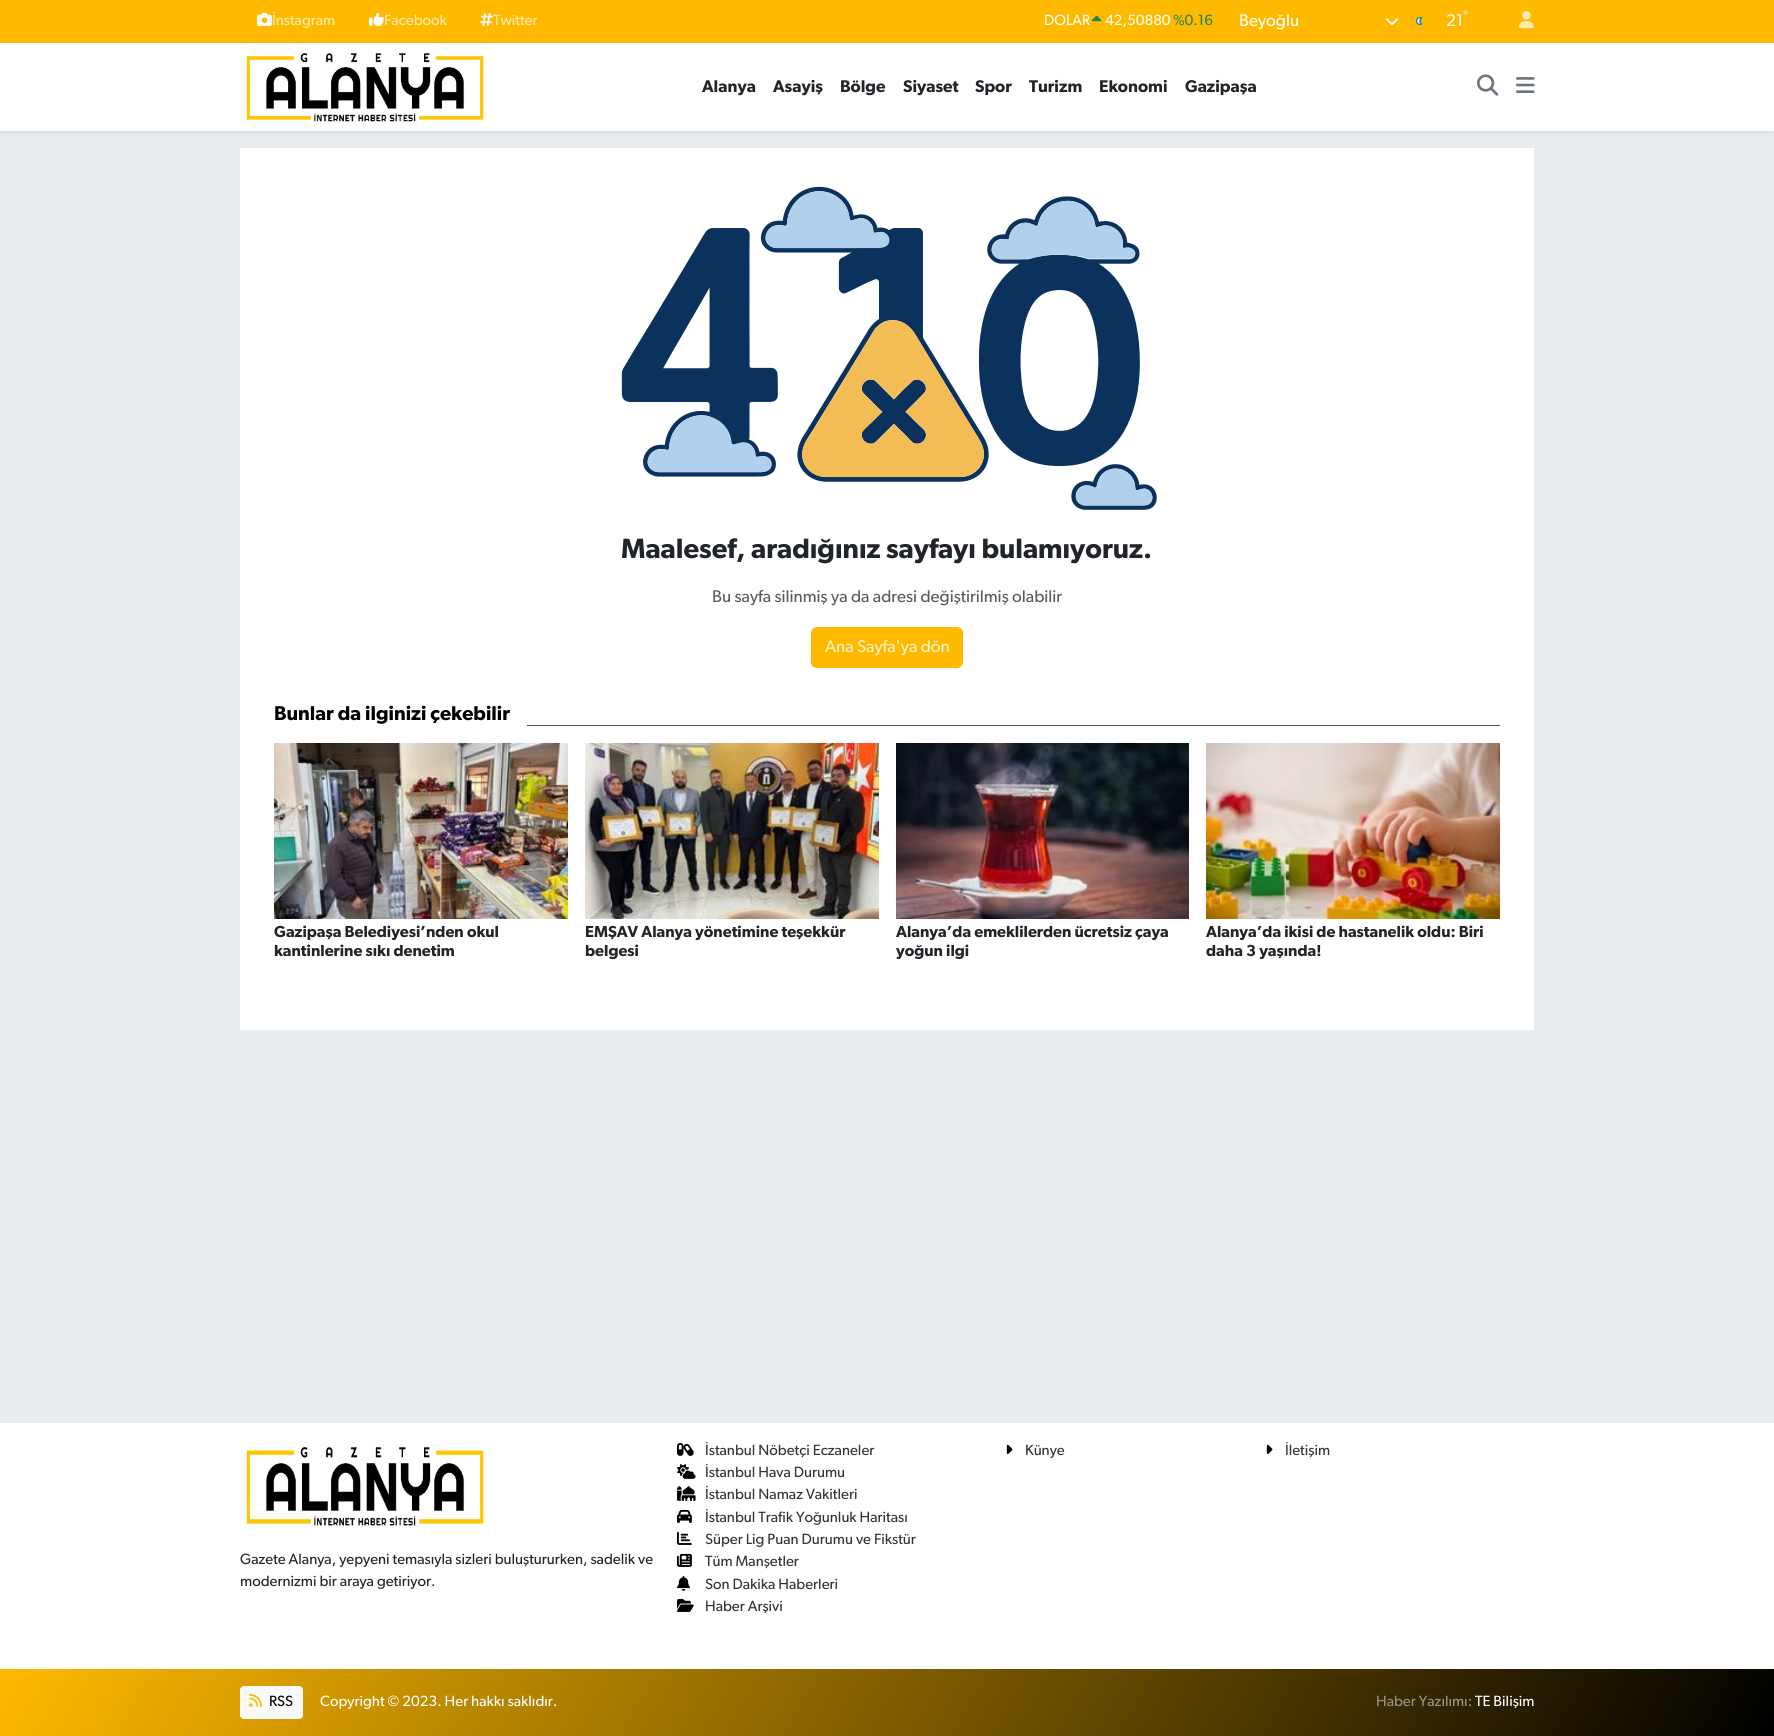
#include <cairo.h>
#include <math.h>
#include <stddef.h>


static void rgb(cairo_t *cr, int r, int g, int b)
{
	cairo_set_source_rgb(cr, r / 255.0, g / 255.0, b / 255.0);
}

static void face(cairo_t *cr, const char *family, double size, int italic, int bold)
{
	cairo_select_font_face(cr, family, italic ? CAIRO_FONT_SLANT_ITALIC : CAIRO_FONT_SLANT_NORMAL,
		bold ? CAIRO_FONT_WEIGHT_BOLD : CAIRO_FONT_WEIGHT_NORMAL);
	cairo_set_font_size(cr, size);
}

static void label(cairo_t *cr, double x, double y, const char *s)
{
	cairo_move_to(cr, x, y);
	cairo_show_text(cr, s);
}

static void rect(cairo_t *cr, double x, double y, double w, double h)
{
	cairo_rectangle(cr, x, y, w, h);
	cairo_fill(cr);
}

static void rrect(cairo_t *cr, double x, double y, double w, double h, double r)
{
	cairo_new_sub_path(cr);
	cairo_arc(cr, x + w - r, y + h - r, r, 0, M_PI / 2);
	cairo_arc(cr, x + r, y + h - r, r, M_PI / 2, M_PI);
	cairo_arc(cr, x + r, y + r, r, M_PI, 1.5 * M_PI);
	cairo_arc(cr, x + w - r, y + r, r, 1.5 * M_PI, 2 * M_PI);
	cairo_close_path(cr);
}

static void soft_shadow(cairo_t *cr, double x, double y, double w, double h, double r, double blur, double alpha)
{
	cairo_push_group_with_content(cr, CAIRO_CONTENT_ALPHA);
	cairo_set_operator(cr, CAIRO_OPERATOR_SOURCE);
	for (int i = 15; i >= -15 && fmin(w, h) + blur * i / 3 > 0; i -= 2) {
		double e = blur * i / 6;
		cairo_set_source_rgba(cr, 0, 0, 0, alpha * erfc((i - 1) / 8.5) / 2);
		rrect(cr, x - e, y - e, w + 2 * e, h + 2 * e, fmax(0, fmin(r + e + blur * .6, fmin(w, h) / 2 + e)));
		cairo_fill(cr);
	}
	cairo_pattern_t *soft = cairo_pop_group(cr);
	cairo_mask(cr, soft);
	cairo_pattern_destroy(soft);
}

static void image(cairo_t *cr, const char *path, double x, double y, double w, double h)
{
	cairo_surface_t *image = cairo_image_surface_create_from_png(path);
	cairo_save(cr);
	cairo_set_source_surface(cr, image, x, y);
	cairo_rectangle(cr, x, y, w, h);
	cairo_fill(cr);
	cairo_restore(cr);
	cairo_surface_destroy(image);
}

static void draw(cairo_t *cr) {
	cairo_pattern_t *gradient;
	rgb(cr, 233, 236, 239);
	cairo_paint(cr);
	rgb(cr, 255, 186, 0);
	rect(cr, 0, 0, 1774, 43);
	image(cr, "image0.png", 257, 12, 15, 14);
	face(cr, "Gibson", 14.9, 0, 0);
	rgb(cr, 255, 234, 179);
	label(cr, 272, 25, "İnstagram");
	image(cr, "image1.png", 369, 12, 15, 14);
	label(cr, 384, 25, "Facebook");
	image(cr, "image2.png", 480, 13, 13, 13);
	label(cr, 493, 25, "Twitter");
	rgb(cr, 255, 255, 255);
	label(cr, 1044, 25, "DOLAR");
	image(cr, "image3.png", 1092, 15, 10, 7);
	label(cr, 1105, 25, "42,50880");
	rgb(cr, 25, 135, 84);
	label(cr, 1173, 25, "%0.16");
	face(cr, "Gibson", 17, 0, 0);
	rgb(cr, 255, 255, 255);
	label(cr, 1239, 26, "Beyoğlu");
	image(cr, "image4.png", 1386, 18, 12, 7);
	face(cr, "Gibson", 13, 0, 0);
	label(cr, 1463, 20, "°");
	image(cr, "image5.png", 1416, 17, 7, 8);
	face(cr, "Gibson", 17, 0, 0);
	label(cr, 1446, 26, "21");
	image(cr, "image6.png", 1519, 11, 15, 18);
	rgb(cr, 0, 0, 0);
	soft_shadow(cr, 0, 45, 1774, 88, 0, 2, 0.07);
	rgb(cr, 255, 255, 255);
	rect(cr, 0, 43, 1774, 88);
	image(cr, "image7.png", 246, 53, 238, 69);
	face(cr, "Gibson SemiBold", 17, 0, 0);
	rgb(cr, 33, 37, 41);
	label(cr, 702, 92, "Alanya");
	label(cr, 773, 92, "Asayiş");
	label(cr, 840, 92, "Bölge");
	label(cr, 903, 92, "Siyaset");
	label(cr, 975, 92, "Spor");
	label(cr, 1029, 92, "Turizm");
	label(cr, 1099, 92, "Ekonomi");
	label(cr, 1185, 92, "Gazipaşa");
	image(cr, "image8.png", 1477, 74, 22, 22);
	image(cr, "image9.png", 1516, 77, 19, 16);
	rgb(cr, 255, 255, 255);
	rect(cr, 240, 148, 1294, 882);
	image(cr, "image10.png", 621, 186, 536, 324);
	face(cr, "Gibson SemiBold", 28, 0, 0);
	rgb(cr, 33, 37, 41);
	label(cr, 621, 558, "Maalesef, aradığınız sayfayı bulamıyoruz.");
	face(cr, "Gibson", 17, 0, 0);
	rgb(cr, 89, 92, 95);
	label(cr, 712, 602, "Bu sayfa silinmiş ya da adresi değiştirilmiş olabilir");
	rgb(cr, 255, 186, 0);
	rrect(cr, 811.5, 627.5, 151, 40, 5.5);
	cairo_fill_preserve(cr);
	cairo_set_line_width(cr, 1);
	cairo_stroke(cr);
	rgb(cr, 255, 241, 204);
	label(cr, 825, 652, "Ana Sayfa'ya dön");
	face(cr, "Gibson SemiBold", 20, 0, 0);
	rgb(cr, 0, 0, 0);
	label(cr, 274, 720, "Bunlar da ilginizi çekebilir");
	rgb(cr, 77, 77, 77);
	rect(cr, 527, 725, 973, 1);
	image(cr, "image11.png", 274, 743, 294, 176);
	face(cr, "Gibson SemiBold", 16, 0, 0);
	rgb(cr, 33, 37, 41);
	label(cr, 274, 937, "Gazipaşa Belediyesi’nden okul");
	label(cr, 274, 956, "kantinlerine sıkı denetim");
	image(cr, "image12.png", 585, 743, 294, 176);
	label(cr, 585, 937, "EMŞAV Alanya yönetimine teşekkür");
	label(cr, 585, 956, "belgesi");
	image(cr, "image13.png", 896, 743, 293, 176);
	label(cr, 896, 937, "Alanya’da emeklilerden ücretsiz çaya");
	label(cr, 896, 956, "yoğun ilgi");
	image(cr, "image14.png", 1206, 743, 294, 176);
	label(cr, 1206, 937, "Alanya’da ikisi de hastanelik oldu: Biri");
	label(cr, 1206, 956, "daha 3 yaşında!");
	rgb(cr, 255, 255, 255);
	rect(cr, 0, 1423, 1774, 246);
	image(cr, "image15.png", 677, 1442, 17, 14);
	face(cr, "Gibson", 14.9, 0, 0);
	rgb(cr, 51, 51, 51);
	label(cr, 705, 1455, "İstanbul Nöbetçi Eczaneler");
	image(cr, "image16.png", 677, 1464, 19, 15);
	label(cr, 705, 1477, "İstanbul Hava Durumu");
	image(cr, "image17.png", 677, 1486, 19, 15);
	label(cr, 705, 1499, "İstanbul Namaz Vakitleri");
	image(cr, "image18.png", 677, 1509, 15, 14);
	label(cr, 705, 1522, "İstanbul Trafik Yoğunluk Haritası");
	image(cr, "image19.png", 677, 1532, 15, 13);
	label(cr, 705, 1544, "Süper Lig Puan Durumu ve Fikstür");
	image(cr, "image20.png", 677, 1553, 15, 14);
	label(cr, 705, 1566, "Tüm Manşetler");
	image(cr, "image21.png", 677, 1576, 13, 15);
	label(cr, 705, 1589, "Son Dakika Haberleri");
	image(cr, "image22.png", 677, 1598, 17, 14);
	label(cr, 705, 1611, "Haber Arşivi");
	image(cr, "image23.png", 1006, 1444, 7, 10);
	label(cr, 1025, 1455, "Künye");
	image(cr, "image23.png", 1266, 1444, 7, 10);
	label(cr, 1285, 1455, "İletişim");
	image(cr, "image24.png", 246, 1446, 238, 80);
	rgb(cr, 33, 37, 41);
	label(cr, 240, 1564, "Gazete Alanya, yepyeni temasıyla sizleri buluştururken, sadelik ve");
	label(cr, 240, 1586, "modernizmi bir araya getiriyor.");
	gradient = cairo_pattern_create_linear(207, 1310, 1567, 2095);
	cairo_pattern_add_color_stop_rgba(gradient, 0, 1, 0.729, 0, 1);
	cairo_pattern_add_color_stop_rgba(gradient, 1, 0, 0, 0, 1);
	cairo_set_source(cr, gradient);
	cairo_pattern_destroy(gradient);
	rect(cr, 0, 1669, 1774, 67);
	rgb(cr, 248, 249, 250);
	rrect(cr, 240.5, 1686.5, 62, 32, 3.5);
	cairo_fill_preserve(cr);
	cairo_stroke(cr);
	image(cr, "image25.png", 249, 1693, 13, 14);
	rgb(cr, 0, 0, 0);
	label(cr, 269, 1706, "RSS");
	rgb(cr, 255, 255, 255);
	label(cr, 320, 1706, "Copyright © 2023. Her hakkı saklıdır.");
	rgb(cr, 154, 147, 128);
	label(cr, 1376, 1706, "Haber Yazılımı:");
	rgb(cr, 255, 255, 255);
	label(cr, 1475, 1706, "TE Bilişim");
}

int main(void) {
	cairo_surface_t *surface = cairo_image_surface_create(CAIRO_FORMAT_RGB24, 1774, 1736);
	cairo_t *cr = cairo_create(surface);
	cairo_font_options_t *options = cairo_font_options_create();
	cairo_font_options_set_hint_metrics(options, CAIRO_HINT_METRICS_OFF);
	cairo_font_options_set_hint_style(options, CAIRO_HINT_STYLE_NONE);
	cairo_set_font_options(cr, options);
	cairo_set_miter_limit(cr, 4);
	draw(cr);
	cairo_surface_write_to_png(surface, "render.png");
	cairo_font_options_destroy(options);
	cairo_destroy(cr);
	cairo_surface_destroy(surface);
	return 0;
}
